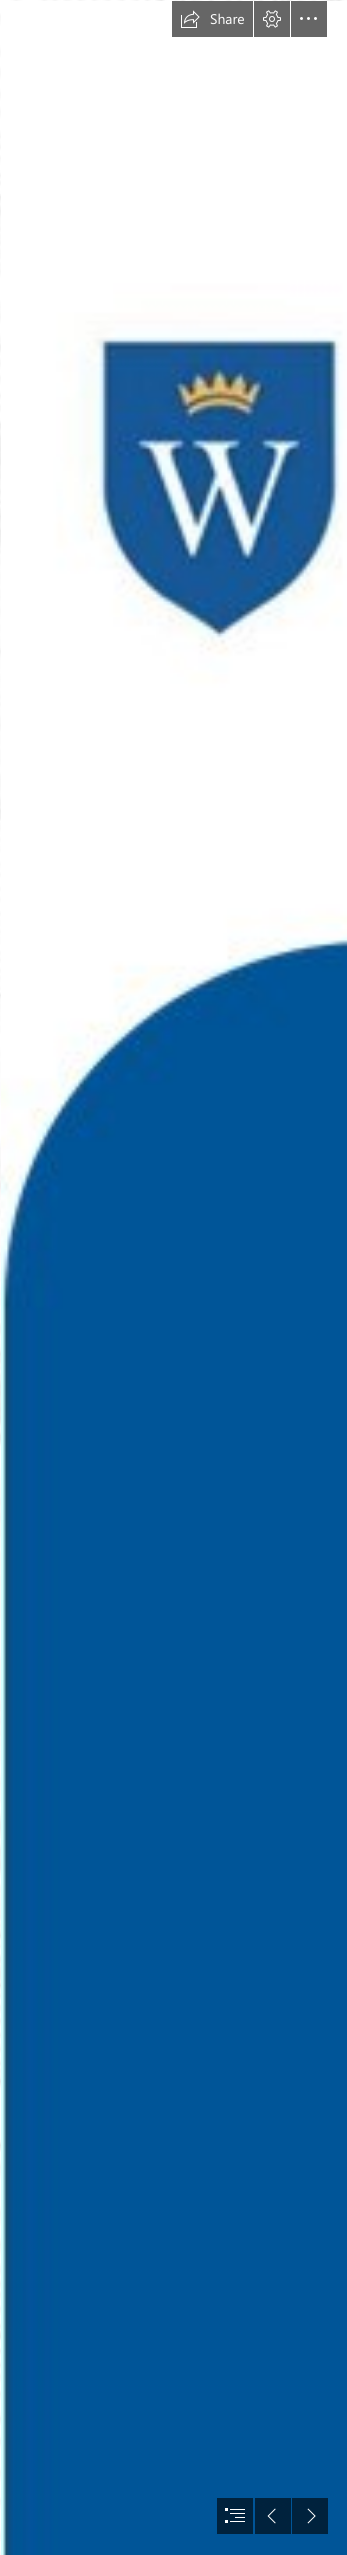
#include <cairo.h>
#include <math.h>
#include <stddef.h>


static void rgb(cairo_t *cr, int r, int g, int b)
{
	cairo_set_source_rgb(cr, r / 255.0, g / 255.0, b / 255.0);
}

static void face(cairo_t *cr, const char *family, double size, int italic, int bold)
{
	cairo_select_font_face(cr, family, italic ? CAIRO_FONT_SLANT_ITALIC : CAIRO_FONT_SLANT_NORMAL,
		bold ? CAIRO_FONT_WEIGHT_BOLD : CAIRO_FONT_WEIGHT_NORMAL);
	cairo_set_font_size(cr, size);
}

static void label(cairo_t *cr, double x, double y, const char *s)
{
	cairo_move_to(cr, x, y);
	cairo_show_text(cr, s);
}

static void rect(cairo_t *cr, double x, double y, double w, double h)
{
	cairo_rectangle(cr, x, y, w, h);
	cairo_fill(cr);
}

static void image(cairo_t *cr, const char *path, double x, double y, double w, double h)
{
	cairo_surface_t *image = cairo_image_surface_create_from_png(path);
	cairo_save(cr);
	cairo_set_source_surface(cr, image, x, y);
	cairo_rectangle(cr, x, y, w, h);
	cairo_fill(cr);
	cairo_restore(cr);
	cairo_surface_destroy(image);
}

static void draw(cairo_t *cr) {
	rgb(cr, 234, 234, 234);
	cairo_paint(cr);
	image(cr, "image0.png", 0, 0, 347, 2555);
	image(cr, "image1.png", 1, 1, 346, 2554);
	rgb(cr, 0, 34, 61);
	rect(cr, 217, 2498, 36, 36);
	image(cr, "image2.png", 225, 2508, 20, 15);
	rect(cr, 255, 2498, 36, 36);
	image(cr, "image3.png", 267, 2508, 9, 16);
	rect(cr, 292, 2498, 36, 36);
	image(cr, "image4.png", 307, 2508, 9, 16);
	rgb(cr, 102, 102, 102);
	rect(cr, 172, 1, 81, 36);
	image(cr, "image5.png", 181, 10, 19, 18);
	face(cr, "Segoe UI", 14, 0, 0);
	rgb(cr, 255, 255, 255);
	label(cr, 210, 24, "Share");
	rgb(cr, 102, 102, 102);
	rect(cr, 254, 1, 36, 36);
	image(cr, "image6.png", 263, 10, 18, 18);
	rect(cr, 291, 1, 36, 36);
	image(cr, "image7.png", 300, 17, 17, 3);
}

int main(void) {
	cairo_surface_t *surface = cairo_image_surface_create(CAIRO_FORMAT_RGB24, 347, 2555);
	cairo_t *cr = cairo_create(surface);
	cairo_font_options_t *options = cairo_font_options_create();
	cairo_font_options_set_hint_metrics(options, CAIRO_HINT_METRICS_OFF);
	cairo_font_options_set_hint_style(options, CAIRO_HINT_STYLE_NONE);
	cairo_set_font_options(cr, options);
	cairo_set_miter_limit(cr, 4);
	draw(cr);
	cairo_surface_write_to_png(surface, "render.png");
	cairo_font_options_destroy(options);
	cairo_destroy(cr);
	cairo_surface_destroy(surface);
	return 0;
}
